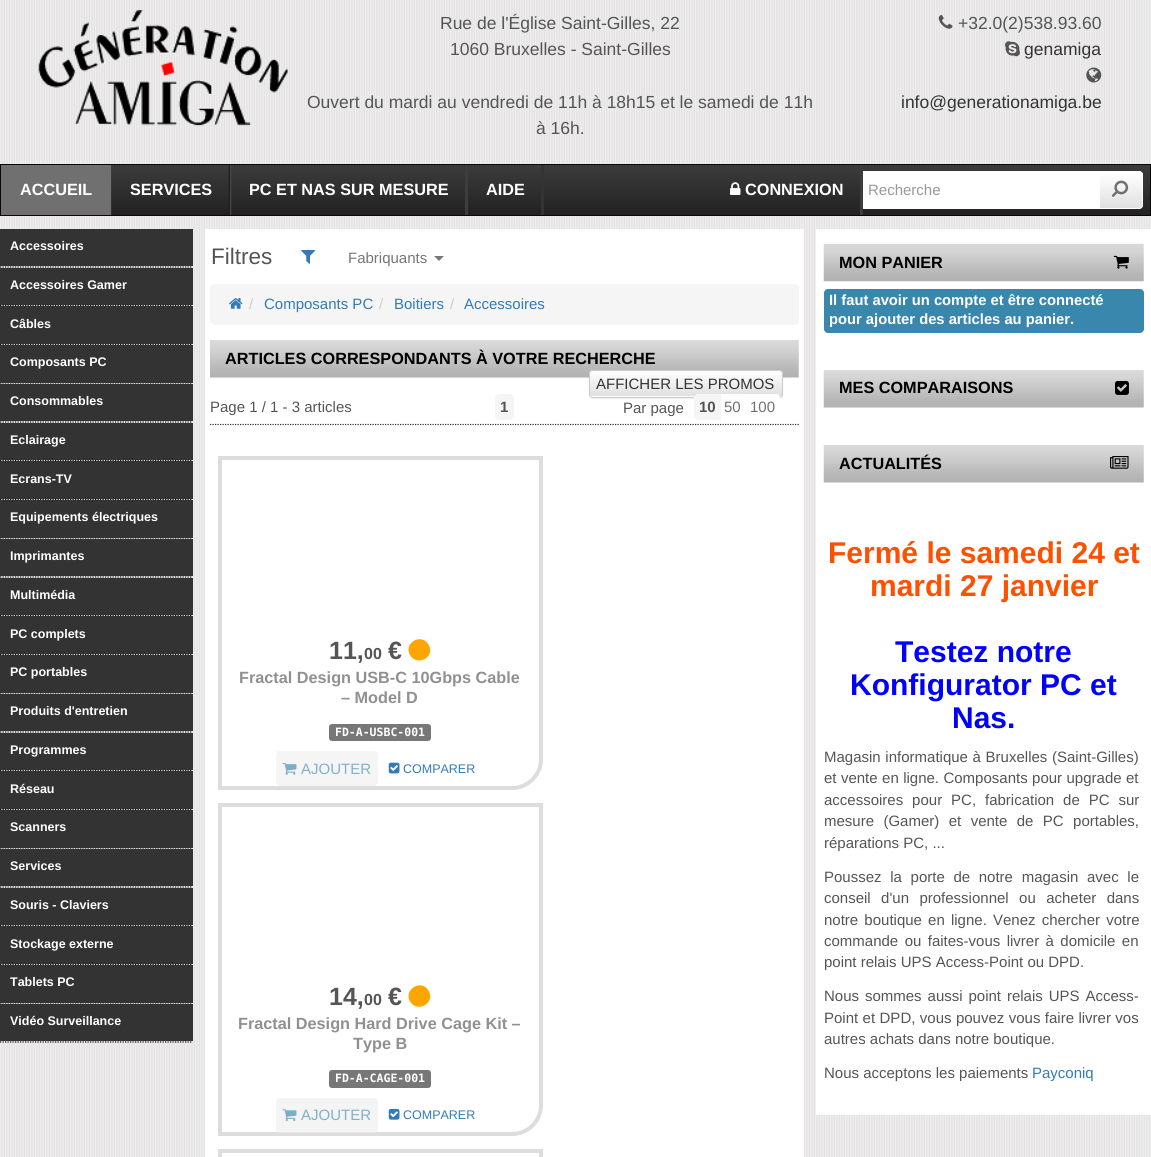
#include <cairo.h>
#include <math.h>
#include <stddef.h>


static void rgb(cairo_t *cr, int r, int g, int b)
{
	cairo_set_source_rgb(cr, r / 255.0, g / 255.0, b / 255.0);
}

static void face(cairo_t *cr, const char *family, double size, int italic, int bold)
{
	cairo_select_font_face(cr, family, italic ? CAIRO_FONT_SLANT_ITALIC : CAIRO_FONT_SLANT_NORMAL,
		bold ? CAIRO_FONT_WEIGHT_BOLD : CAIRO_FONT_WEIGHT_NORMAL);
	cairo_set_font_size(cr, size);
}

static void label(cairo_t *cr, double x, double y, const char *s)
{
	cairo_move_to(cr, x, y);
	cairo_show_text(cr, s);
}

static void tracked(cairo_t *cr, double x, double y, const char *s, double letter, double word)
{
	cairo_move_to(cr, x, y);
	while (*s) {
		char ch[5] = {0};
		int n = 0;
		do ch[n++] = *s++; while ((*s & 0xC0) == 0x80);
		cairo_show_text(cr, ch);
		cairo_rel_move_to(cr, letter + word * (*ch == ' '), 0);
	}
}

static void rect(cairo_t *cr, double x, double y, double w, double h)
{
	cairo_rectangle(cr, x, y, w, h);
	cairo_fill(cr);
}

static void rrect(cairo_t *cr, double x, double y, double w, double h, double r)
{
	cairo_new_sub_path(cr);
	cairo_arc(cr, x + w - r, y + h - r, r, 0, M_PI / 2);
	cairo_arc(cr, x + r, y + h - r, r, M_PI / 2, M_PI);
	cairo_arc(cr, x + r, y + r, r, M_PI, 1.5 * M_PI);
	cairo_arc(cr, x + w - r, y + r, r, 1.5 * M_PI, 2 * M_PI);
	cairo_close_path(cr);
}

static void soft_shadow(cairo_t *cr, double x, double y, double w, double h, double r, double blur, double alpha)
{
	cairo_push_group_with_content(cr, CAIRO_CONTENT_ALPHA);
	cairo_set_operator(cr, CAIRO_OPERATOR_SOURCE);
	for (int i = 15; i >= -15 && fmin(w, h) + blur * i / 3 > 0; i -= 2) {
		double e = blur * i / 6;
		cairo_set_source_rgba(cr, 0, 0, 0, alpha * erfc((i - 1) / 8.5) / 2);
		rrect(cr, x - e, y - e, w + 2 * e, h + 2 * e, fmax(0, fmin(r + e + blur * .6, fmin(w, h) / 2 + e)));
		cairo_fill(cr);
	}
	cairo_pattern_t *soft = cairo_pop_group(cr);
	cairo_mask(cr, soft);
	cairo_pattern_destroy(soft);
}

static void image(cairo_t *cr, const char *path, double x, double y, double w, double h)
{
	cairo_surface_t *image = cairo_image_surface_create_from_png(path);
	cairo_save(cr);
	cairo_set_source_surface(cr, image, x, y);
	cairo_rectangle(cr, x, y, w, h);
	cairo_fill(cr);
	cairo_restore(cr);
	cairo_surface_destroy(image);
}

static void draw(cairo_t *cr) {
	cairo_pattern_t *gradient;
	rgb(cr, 255, 255, 255);
	cairo_paint(cr);
	image(cr, "image0.png", 0, 0, 1151, 1157);
	image(cr, "image1.png", 38, 10, 250, 116);
	face(cr, "Liberation Sans", 17.5, 0, 0);
	rgb(cr, 85, 85, 85);
	label(cr, 440, 29, "Rue de l'Église Saint-Gilles, 22");
	label(cr, 450, 55, "1060 Bruxelles - Saint-Gilles");
	label(cr, 307, 108, "Ouvert du mardi au vendredi de 11h à 18h15 et le samedi de 11h");
	label(cr, 536, 134, "à 16h.");
	image(cr, "image2.png", 938, 15, 15, 14);
	label(cr, 958, 29, "+32.0(2)538.93.60");
	image(cr, "image3.png", 1005, 41, 15, 16);
	rgb(cr, 51, 51, 51);
	label(cr, 1024, 55, "genamiga");
	image(cr, "image4.png", 1086, 67, 16, 16);
	label(cr, 901, 108, "info@generationamiga.be");
	gradient = cairo_pattern_create_linear(576, 165, 576, 215);
	cairo_pattern_add_color_stop_rgba(gradient, 0, 0.235, 0.235, 0.235, 1);
	cairo_pattern_add_color_stop_rgba(gradient, 1, 0.133, 0.133, 0.133, 1);
	cairo_set_source(cr, gradient);
	cairo_pattern_destroy(gradient);
	rect(cr, 111, 165, 1039, 50);
	cairo_rectangle(cr, 0.5, 164.5, 1150, 51);
	rgb(cr, 8, 8, 8);
	cairo_set_line_width(cr, 1);
	cairo_stroke(cr);
	image(cr, "image5.png", 111, 165, 1, 50);
	rgb(cr, 112, 112, 112);
	rect(cr, 1, 165, 110, 50);
	face(cr, "Liberation Sans", 16.25, 0, 1);
	rgb(cr, 255, 255, 255);
	label(cr, 20, 195, "ACCUEIL");
	image(cr, "image6.png", 228, 165, 4, 50);
	label(cr, 130, 195, "SERVICES");
	rgb(cr, 61, 61, 61);
	rect(cr, 465, 165, 3, 50);
	rgb(cr, 255, 255, 255);
	label(cr, 249, 195, "PC ET NAS SUR MESURE");
	rgb(cr, 52, 52, 52);
	rect(cr, 541, 165, 3, 50);
	rgb(cr, 255, 255, 255);
	label(cr, 486, 195, "AIDE");
	rgb(cr, 61, 61, 61);
	rect(cr, 860, 165, 3, 50);
	image(cr, "image7.png", 730, 182, 11, 13);
	rgb(cr, 255, 255, 255);
	label(cr, 745, 195, "CONNEXION");
	rect(cr, 863, 171, 236, 38);
	face(cr, "Liberation Sans", 15, 0, 0);
	rgb(cr, 153, 153, 153);
	label(cr, 868, 195, "Recherche");
	rgb(cr, 255, 255, 255);
	cairo_new_path(cr);
	cairo_move_to(cr, 1099, 171);
	cairo_line_to(cr, 1139, 171);
	cairo_curve_to(cr, 1141, 171, 1143, 173, 1143, 175);
	cairo_line_to(cr, 1143, 205);
	cairo_curve_to(cr, 1143, 207, 1141, 209, 1139, 209);
	cairo_line_to(cr, 1099, 209);
	cairo_close_path(cr);
	cairo_fill(cr);
	cairo_save(cr);
	cairo_new_path(cr);
	cairo_move_to(cr, 1099, 171);
	cairo_line_to(cr, 1139, 171);
	cairo_curve_to(cr, 1141, 171, 1143, 173, 1143, 175);
	cairo_line_to(cr, 1143, 205);
	cairo_curve_to(cr, 1143, 207, 1141, 209, 1139, 209);
	cairo_line_to(cr, 1099, 209);
	cairo_close_path(cr);
	cairo_clip(cr);
	gradient = cairo_pattern_create_linear(1121, 173, 1121, 208);
	cairo_pattern_add_color_stop_rgba(gradient, 0, 1, 1, 1, 1);
	cairo_pattern_add_color_stop_rgba(gradient, 1, 0.878, 0.878, 0.878, 1);
	cairo_set_source(cr, gradient);
	cairo_pattern_destroy(gradient);
	rect(cr, 1100, 173, 43, 35);
	cairo_restore(cr);
	cairo_new_path(cr);
	cairo_move_to(cr, 1099.5, 171.5);
	cairo_line_to(cr, 1139, 171.5);
	cairo_curve_to(cr, 1141, 171.5, 1142.5, 173, 1142.5, 175);
	cairo_line_to(cr, 1142.5, 205);
	cairo_curve_to(cr, 1142.5, 207, 1141, 208.5, 1139, 208.5);
	cairo_line_to(cr, 1099.5, 208.5);
	cairo_close_path(cr);
	cairo_stroke(cr);
	image(cr, "image8.png", 1111, 180, 18, 17);
	cairo_new_path(cr);
	cairo_move_to(cr, 0, 267);
	cairo_line_to(cr, 192.5, 267);
	rgb(cr, 20, 20, 20);
	cairo_set_line_width(cr, 1.2);
	cairo_set_dash(cr, (double[]){1.25, 1.25}, 2, 0);
	cairo_stroke(cr);
	rgb(cr, 51, 51, 51);
	rect(cr, 0, 229, 193, 37);
	face(cr, "Liberation Sans", 12.5, 0, 1);
	rgb(cr, 255, 255, 255);
	label(cr, 10, 250, "Accessoires");
	cairo_new_path(cr);
	cairo_move_to(cr, 0, 305.5);
	cairo_line_to(cr, 192.5, 305.5);
	rgb(cr, 20, 20, 20);
	cairo_stroke(cr);
	rgb(cr, 51, 51, 51);
	rect(cr, 0, 268, 193, 37);
	rgb(cr, 255, 255, 255);
	label(cr, 10, 289, "Accessoires Gamer");
	cairo_new_path(cr);
	cairo_move_to(cr, 0, 344.5);
	cairo_line_to(cr, 192.5, 344.5);
	rgb(cr, 20, 20, 20);
	cairo_stroke(cr);
	rgb(cr, 51, 51, 51);
	rect(cr, 0, 306, 193, 38);
	rgb(cr, 255, 255, 255);
	label(cr, 10, 328, "Câbles");
	cairo_new_path(cr);
	cairo_move_to(cr, 0, 383);
	cairo_line_to(cr, 192.5, 383);
	rgb(cr, 20, 20, 20);
	cairo_stroke(cr);
	rgb(cr, 51, 51, 51);
	rect(cr, 0, 345, 193, 38);
	rgb(cr, 255, 255, 255);
	label(cr, 10, 366, "Composants PC");
	cairo_new_path(cr);
	cairo_move_to(cr, 0, 422);
	cairo_line_to(cr, 192.5, 422);
	rgb(cr, 20, 20, 20);
	cairo_stroke(cr);
	rgb(cr, 51, 51, 51);
	rect(cr, 0, 384, 193, 37);
	rgb(cr, 255, 255, 255);
	label(cr, 10, 405, "Consommables");
	cairo_new_path(cr);
	cairo_move_to(cr, 0, 460.5);
	cairo_line_to(cr, 192.5, 460.5);
	rgb(cr, 20, 20, 20);
	cairo_stroke(cr);
	rgb(cr, 51, 51, 51);
	rect(cr, 0, 423, 193, 37);
	rgb(cr, 255, 255, 255);
	label(cr, 10, 444, "Eclairage");
	cairo_new_path(cr);
	cairo_move_to(cr, 0, 499.5);
	cairo_line_to(cr, 192.5, 499.5);
	rgb(cr, 20, 20, 20);
	cairo_stroke(cr);
	rgb(cr, 51, 51, 51);
	rect(cr, 0, 461, 193, 38);
	rgb(cr, 255, 255, 255);
	label(cr, 10, 483, "Ecrans-TV");
	cairo_new_path(cr);
	cairo_move_to(cr, 0, 538);
	cairo_line_to(cr, 192.5, 538);
	rgb(cr, 20, 20, 20);
	cairo_stroke(cr);
	rgb(cr, 51, 51, 51);
	rect(cr, 0, 500, 193, 38);
	rgb(cr, 255, 255, 255);
	label(cr, 10, 521, "Equipements électriques");
	cairo_new_path(cr);
	cairo_move_to(cr, 0, 577);
	cairo_line_to(cr, 192.5, 577);
	rgb(cr, 20, 20, 20);
	cairo_stroke(cr);
	rgb(cr, 51, 51, 51);
	rect(cr, 0, 539, 193, 37);
	rgb(cr, 255, 255, 255);
	label(cr, 10, 560, "Imprimantes");
	cairo_new_path(cr);
	cairo_move_to(cr, 0, 615.5);
	cairo_line_to(cr, 192.5, 615.5);
	rgb(cr, 20, 20, 20);
	cairo_stroke(cr);
	rgb(cr, 51, 51, 51);
	rect(cr, 0, 578, 193, 37);
	rgb(cr, 255, 255, 255);
	label(cr, 10, 599, "Multimédia");
	cairo_new_path(cr);
	cairo_move_to(cr, 0, 654.5);
	cairo_line_to(cr, 192.5, 654.5);
	rgb(cr, 20, 20, 20);
	cairo_stroke(cr);
	rgb(cr, 51, 51, 51);
	rect(cr, 0, 616, 193, 38);
	rgb(cr, 255, 255, 255);
	label(cr, 10, 638, "PC complets");
	cairo_new_path(cr);
	cairo_move_to(cr, 0, 693);
	cairo_line_to(cr, 192.5, 693);
	rgb(cr, 20, 20, 20);
	cairo_stroke(cr);
	rgb(cr, 51, 51, 51);
	rect(cr, 0, 655, 193, 38);
	rgb(cr, 255, 255, 255);
	label(cr, 10, 676, "PC portables");
	cairo_new_path(cr);
	cairo_move_to(cr, 0, 732);
	cairo_line_to(cr, 192.5, 732);
	rgb(cr, 20, 20, 20);
	cairo_stroke(cr);
	rgb(cr, 51, 51, 51);
	rect(cr, 0, 694, 193, 37);
	rgb(cr, 255, 255, 255);
	label(cr, 10, 715, "Produits d'entretien");
	cairo_new_path(cr);
	cairo_move_to(cr, 0, 770.5);
	cairo_line_to(cr, 192.5, 770.5);
	rgb(cr, 20, 20, 20);
	cairo_stroke(cr);
	rgb(cr, 51, 51, 51);
	rect(cr, 0, 733, 193, 37);
	rgb(cr, 255, 255, 255);
	label(cr, 10, 754, "Programmes");
	cairo_new_path(cr);
	cairo_move_to(cr, 0, 809.5);
	cairo_line_to(cr, 192.5, 809.5);
	rgb(cr, 20, 20, 20);
	cairo_stroke(cr);
	rgb(cr, 51, 51, 51);
	rect(cr, 0, 771, 193, 38);
	rgb(cr, 255, 255, 255);
	label(cr, 10, 793, "Réseau");
	cairo_new_path(cr);
	cairo_move_to(cr, 0, 848);
	cairo_line_to(cr, 192.5, 848);
	rgb(cr, 20, 20, 20);
	cairo_stroke(cr);
	rgb(cr, 51, 51, 51);
	rect(cr, 0, 810, 193, 38);
	rgb(cr, 255, 255, 255);
	label(cr, 10, 831, "Scanners");
	cairo_new_path(cr);
	cairo_move_to(cr, 0, 887);
	cairo_line_to(cr, 192.5, 887);
	rgb(cr, 20, 20, 20);
	cairo_stroke(cr);
	rgb(cr, 51, 51, 51);
	rect(cr, 0, 849, 193, 37);
	rgb(cr, 255, 255, 255);
	label(cr, 10, 870, "Services");
	cairo_new_path(cr);
	cairo_move_to(cr, 0, 925.5);
	cairo_line_to(cr, 192.5, 925.5);
	rgb(cr, 20, 20, 20);
	cairo_stroke(cr);
	rgb(cr, 51, 51, 51);
	rect(cr, 0, 888, 193, 37);
	rgb(cr, 255, 255, 255);
	label(cr, 10, 909, "Souris - Claviers");
	cairo_new_path(cr);
	cairo_move_to(cr, 0, 964.5);
	cairo_line_to(cr, 192.5, 964.5);
	rgb(cr, 20, 20, 20);
	cairo_stroke(cr);
	rgb(cr, 51, 51, 51);
	rect(cr, 0, 926, 193, 38);
	rgb(cr, 255, 255, 255);
	label(cr, 10, 948, "Stockage externe");
	cairo_new_path(cr);
	cairo_move_to(cr, 0, 1003);
	cairo_line_to(cr, 192.5, 1003);
	rgb(cr, 20, 20, 20);
	cairo_stroke(cr);
	rgb(cr, 51, 51, 51);
	rect(cr, 0, 965, 193, 38);
	rgb(cr, 255, 255, 255);
	label(cr, 10, 986, "Tablets PC");
	cairo_new_path(cr);
	cairo_move_to(cr, 0, 1042);
	cairo_line_to(cr, 192.5, 1042);
	rgb(cr, 20, 20, 20);
	cairo_stroke(cr);
	rgb(cr, 51, 51, 51);
	rect(cr, 0, 1004, 193, 37);
	rgb(cr, 255, 255, 255);
	label(cr, 10, 1025, "Vidéo Surveillance");
	rect(cr, 205, 229, 599, 928);
	face(cr, "Liberation Sans", 22.5, 0, 0);
	rgb(cr, 85, 85, 85);
	label(cr, 211, 264, "Filtres");
	image(cr, "image9.png", 301, 250, 14, 14);
	face(cr, "Liberation Sans", 15, 0, 0);
	rgb(cr, 119, 119, 119);
	label(cr, 348, 263, "Fabriquants");
	cairo_new_path(cr);
	cairo_move_to(cr, 434, 256);
	cairo_line_to(cr, 444, 256);
	cairo_line_to(cr, 439, 261);
	cairo_close_path(cr);
	cairo_fill(cr);
	rgb(cr, 245, 245, 245);
	rrect(cr, 210, 284, 589, 41, 5);
	cairo_fill(cr);
	image(cr, "image10.png", 229, 298, 14, 11);
	rgb(cr, 204, 204, 204);
	label(cr, 249, 309, "/");
	rgb(cr, 51, 122, 183);
	label(cr, 264, 309, "Composants PC");
	rgb(cr, 204, 204, 204);
	label(cr, 379, 309, "/");
	rgb(cr, 51, 122, 183);
	label(cr, 394, 309, "Boitiers");
	rgb(cr, 204, 204, 204);
	label(cr, 450, 309, "/");
	rgb(cr, 51, 122, 183);
	label(cr, 464, 309, "Accessoires");
	image(cr, "image11.png", 210, 340, 589, 38);
	face(cr, "Liberation Sans", 16.25, 0, 1);
	rgb(cr, 0, 0, 0);
	label(cr, 225, 364, "ARTICLES CORRESPONDANTS À VOTRE RECHERCHE");
	rgb(cr, 0, 0, 0);
	soft_shadow(cr, 589, 371, 194, 28, 4, 0.5, 0.07);
	rgb(cr, 255, 255, 255);
	rrect(cr, 589, 370, 194, 28, 4);
	cairo_fill(cr);
	cairo_save(cr);
	rrect(cr, 589, 370, 194, 28, 4);
	cairo_clip(cr);
	gradient = cairo_pattern_create_linear(686, 371, 686, 396);
	cairo_pattern_add_color_stop_rgba(gradient, 0, 1, 1, 1, 1);
	cairo_pattern_add_color_stop_rgba(gradient, 1, 0.878, 0.878, 0.878, 1);
	cairo_set_source(cr, gradient);
	cairo_pattern_destroy(gradient);
	rect(cr, 589, 371, 194, 25);
	cairo_restore(cr);
	rrect(cr, 589.5, 370.5, 193, 27, 3.5);
	rgb(cr, 204, 204, 204);
	cairo_set_line_width(cr, 1);
	cairo_set_dash(cr, NULL, 0, 0);
	cairo_stroke(cr);
	face(cr, "Liberation Sans", 15, 0, 0);
	rgb(cr, 51, 51, 51);
	label(cr, 596, 389, "AFFICHER LES PROMOS");
	cairo_new_path(cr);
	cairo_move_to(cr, 210, 424.5);
	cairo_line_to(cr, 799, 424.5);
	cairo_set_line_width(cr, 1.2);
	cairo_set_dash(cr, (double[]){1.25, 1.25}, 2, 0);
	cairo_stroke(cr);
	rgb(cr, 85, 85, 85);
	label(cr, 210, 412, "Page 1 / 1 - 3 articles");
	rgb(cr, 245, 245, 245);
	rrect(cr, 495, 394, 19, 26, 4);
	cairo_fill(cr);
	face(cr, "Liberation Sans", 15, 0, 1);
	rgb(cr, 85, 85, 85);
	label(cr, 500, 412, "1");
	face(cr, "Liberation Sans", 15, 0, 0);
	label(cr, 623, 413, "Par page");
	rgb(cr, 245, 245, 245);
	cairo_new_path(cr);
	cairo_move_to(cr, 698, 394);
	cairo_line_to(cr, 721, 394);
	cairo_line_to(cr, 721, 420);
	cairo_line_to(cr, 698, 420);
	cairo_curve_to(cr, 696, 420, 694, 418, 694, 416);
	cairo_line_to(cr, 694, 398);
	cairo_curve_to(cr, 694, 396, 696, 394, 698, 394);
	cairo_close_path(cr);
	cairo_fill(cr);
	face(cr, "Liberation Sans", 15, 0, 1);
	rgb(cr, 85, 85, 85);
	label(cr, 699, 412, "10");
	rgb(cr, 255, 255, 255);
	rect(cr, 721, 394, 24, 5);
	face(cr, "Liberation Sans", 15, 0, 0);
	rgb(cr, 112, 112, 112);
	label(cr, 724, 412, "50");
	rgb(cr, 255, 255, 255);
	cairo_new_path(cr);
	cairo_move_to(cr, 745, 394);
	cairo_line_to(cr, 776, 394);
	cairo_curve_to(cr, 778, 394, 780, 396, 780, 398);
	cairo_line_to(cr, 780, 416);
	cairo_curve_to(cr, 780, 418, 778, 420, 776, 420);
	cairo_line_to(cr, 745, 420);
	cairo_close_path(cr);
	cairo_fill(cr);
	rgb(cr, 112, 112, 112);
	label(cr, 750, 412, "100");
	cairo_new_path(cr);
	cairo_move_to(cr, 220, 458);
	cairo_line_to(cr, 541, 458);
	cairo_line_to(cr, 541, 759);
	cairo_curve_to(cr, 541, 775, 528, 788, 512, 788);
	cairo_line_to(cr, 220, 788);
	cairo_close_path(cr);
	rgb(cr, 221, 221, 221);
	cairo_set_line_width(cr, 4);
	cairo_set_dash(cr, NULL, 0, 0);
	cairo_stroke(cr);
	face(cr, "Liberation Sans", 25, 0, 1);
	rgb(cr, 85, 85, 85);
	label(cr, 329, 659, "11,");
	face(cr, "Liberation Sans", 16, 0, 1);
	label(cr, 364, 659, "00");
	face(cr, "Liberation Sans", 25, 0, 1);
	label(cr, 388, 659, "€");
	rgb(cr, 255, 165, 0);
	cairo_new_path(cr);
	cairo_move_to(cr, 428.5, 644.5);
	cairo_curve_to(cr, 436, 656.5, 417.5, 667.5, 410, 655);
	cairo_curve_to(cr, 403, 643, 421.5, 632.5, 428.5, 644.5);
	cairo_close_path(cr);
	cairo_fill(cr);
	face(cr, "Liberation Sans", 16.25, 0, 1);
	rgb(cr, 144, 144, 144);
	label(cr, 239, 683, "Fractal Design USB-C 10Gbps Cable");
	label(cr, 341, 703, "– Model D");
	rgb(cr, 119, 119, 119);
	rrect(cr, 329, 724, 102, 17, 3);
	cairo_fill(cr);
	face(cr, "DejaVu Sans Mono", 11.5, 0, 1);
	rgb(cr, 255, 255, 255);
	label(cr, 335, 736, "FD-A-USBC-001");
	rgb(cr, 245, 245, 245);
	rrect(cr, 276, 751, 102, 35, 4);
	cairo_fill(cr);
	image(cr, "image12.png", 282, 763, 15, 12);
	face(cr, "Liberation Sans", 15, 0, 0);
	rgb(cr, 127, 177, 202);
	label(cr, 301, 774, "AJOUTER");
	image(cr, "image13.png", 388, 762, 12, 12);
	face(cr, "Liberation Sans", 12.5, 0, 0);
	rgb(cr, 51, 122, 183);
	label(cr, 403, 773, "COMPARER");
	cairo_new_path(cr);
	cairo_move_to(cr, 220, 805);
	cairo_line_to(cr, 541, 805);
	cairo_line_to(cr, 541, 1105);
	cairo_curve_to(cr, 541, 1121, 528, 1134, 512, 1134);
	cairo_line_to(cr, 220, 1134);
	cairo_close_path(cr);
	rgb(cr, 221, 221, 221);
	cairo_stroke(cr);
	face(cr, "Liberation Sans", 25, 0, 1);
	rgb(cr, 85, 85, 85);
	label(cr, 329, 1005, "14,");
	face(cr, "Liberation Sans", 16, 0, 1);
	label(cr, 364, 1005, "00");
	face(cr, "Liberation Sans", 25, 0, 1);
	label(cr, 388, 1005, "€");
	rgb(cr, 255, 165, 0);
	cairo_new_path(cr);
	cairo_move_to(cr, 428.5, 990.5);
	cairo_curve_to(cr, 436, 1003, 417.5, 1013.5, 410, 1001.5);
	cairo_curve_to(cr, 403, 989.5, 421.5, 978.5, 428.5, 990.5);
	cairo_close_path(cr);
	cairo_fill(cr);
	face(cr, "Liberation Sans", 16.25, 0, 1);
	rgb(cr, 144, 144, 144);
	label(cr, 238, 1029, "Fractal Design Hard Drive Cage Kit –");
	label(cr, 353, 1049, "Type B");
	rgb(cr, 119, 119, 119);
	rrect(cr, 329, 1070, 102, 18, 3);
	cairo_fill(cr);
	face(cr, "DejaVu Sans Mono", 11.5, 0, 1);
	rgb(cr, 255, 255, 255);
	label(cr, 335, 1082, "FD-A-CAGE-001");
	cairo_set_source_rgba(cr, 0.937, 0.937, 0.937, 0.65);
	rrect(cr, 276, 1098, 102, 35, 4);
	cairo_fill(cr);
	image(cr, "image14.png", 282, 1109, 15, 12);
	face(cr, "Liberation Sans", 15, 0, 0);
	rgb(cr, 127, 177, 202);
	label(cr, 301, 1120, "AJOUTER");
	image(cr, "image15.png", 388, 1108, 12, 12);
	face(cr, "Liberation Sans", 12.5, 0, 0);
	rgb(cr, 51, 122, 183);
	label(cr, 403, 1119, "COMPARER");
	cairo_rectangle(cr, 220, 1151, 321, 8);
	rgb(cr, 221, 221, 221);
	cairo_stroke(cr);
	rgb(cr, 255, 255, 255);
	rect(cr, 816, 229, 335, 886);
	image(cr, "image16.png", 823, 243, 321, 39);
	face(cr, "Liberation Sans", 16.25, 0, 1);
	rgb(cr, 0, 0, 0);
	label(cr, 839, 268, "MON PANIER");
	image(cr, "image17.png", 1113, 255, 16, 14);
	rgb(cr, 58, 135, 173);
	rrect(cr, 824, 289, 320, 44, 4);
	cairo_fill(cr);
	face(cr, "Liberation Sans", 14.75, 0, 1);
	rgb(cr, 255, 255, 255);
	label(cr, 829, 305, "Il faut avoir un compte et être connecté");
	label(cr, 829, 324, "pour ajouter des articles au panier.");
	image(cr, "image18.png", 823, 370, 321, 38);
	face(cr, "Liberation Sans", 16.25, 0, 1);
	rgb(cr, 0, 0, 0);
	label(cr, 839, 393, "MES COMPARAISONS");
	image(cr, "image19.png", 1115, 381, 14, 14);
	image(cr, "image18.png", 823, 445, 321, 38);
	label(cr, 839, 469, "ACTUALITÉS");
	image(cr, "image20.png", 1110, 456, 19, 13);
	face(cr, "Liberation Sans", 30, 0, 1);
	rgb(cr, 255, 80, 0);
	label(cr, 828, 563, "Fermé le samedi 24 et");
	label(cr, 870, 596, "mardi 27 janvier");
	rgb(cr, 0, 0, 255);
	label(cr, 895, 662, "Testez notre");
	label(cr, 850, 695, "Konfigurator PC et");
	label(cr, 952, 728, "Nas.");
	face(cr, "Liberation Sans", 15, 0, 0);
	rgb(cr, 85, 85, 85);
	tracked(cr, 824, 762, "Magasin informatique à Bruxelles (Saint-Gilles)", 0, 0.5);
	tracked(cr, 824, 783, "et vente en ligne. Composants pour upgrade et", 0, 0.25);
	tracked(cr, 824, 805, "accessoires pour PC, fabrication de PC sur", 0, 4.75);
	tracked(cr, 824, 826, "mesure (Gamer) et vente de PC portables,", 0, 5.25);
	label(cr, 824, 848, "réparations PC, ...");
	tracked(cr, 824, 882, "Poussez la porte de notre magasin avec le", 0, 4.5);
	tracked(cr, 824, 903, "conseil d'un professionnel ou acheter dans", 0, 6.25);
	tracked(cr, 824, 925, "notre boutique en ligne. Venez chercher votre", 0, 2);
	tracked(cr, 824, 946, "commande ou faites-vous livrer à domicile en", 0, 2.25);
	label(cr, 824, 967, "point relais UPS Access-Point ou DPD.");
	tracked(cr, 824, 1001, "Nous sommes aussi point relais UPS Access-", 0, 1.75);
	tracked(cr, 824, 1023, "Point et DPD, vous pouvez vous faire livrer vos", 0, 0.25);
	label(cr, 824, 1044, "autres achats dans notre boutique.");
	label(cr, 824, 1078, "Nous acceptons les paiements");
	rgb(cr, 51, 122, 183);
	label(cr, 1032, 1078, "Payconiq");
}

int main(void) {
	cairo_surface_t *surface = cairo_image_surface_create(CAIRO_FORMAT_RGB24, 1151, 1157);
	cairo_t *cr = cairo_create(surface);
	cairo_font_options_t *options = cairo_font_options_create();
	cairo_font_options_set_hint_metrics(options, CAIRO_HINT_METRICS_OFF);
	cairo_font_options_set_hint_style(options, CAIRO_HINT_STYLE_NONE);
	cairo_set_font_options(cr, options);
	cairo_set_miter_limit(cr, 4);
	draw(cr);
	cairo_surface_write_to_png(surface, "render.png");
	cairo_font_options_destroy(options);
	cairo_destroy(cr);
	cairo_surface_destroy(surface);
	return 0;
}
